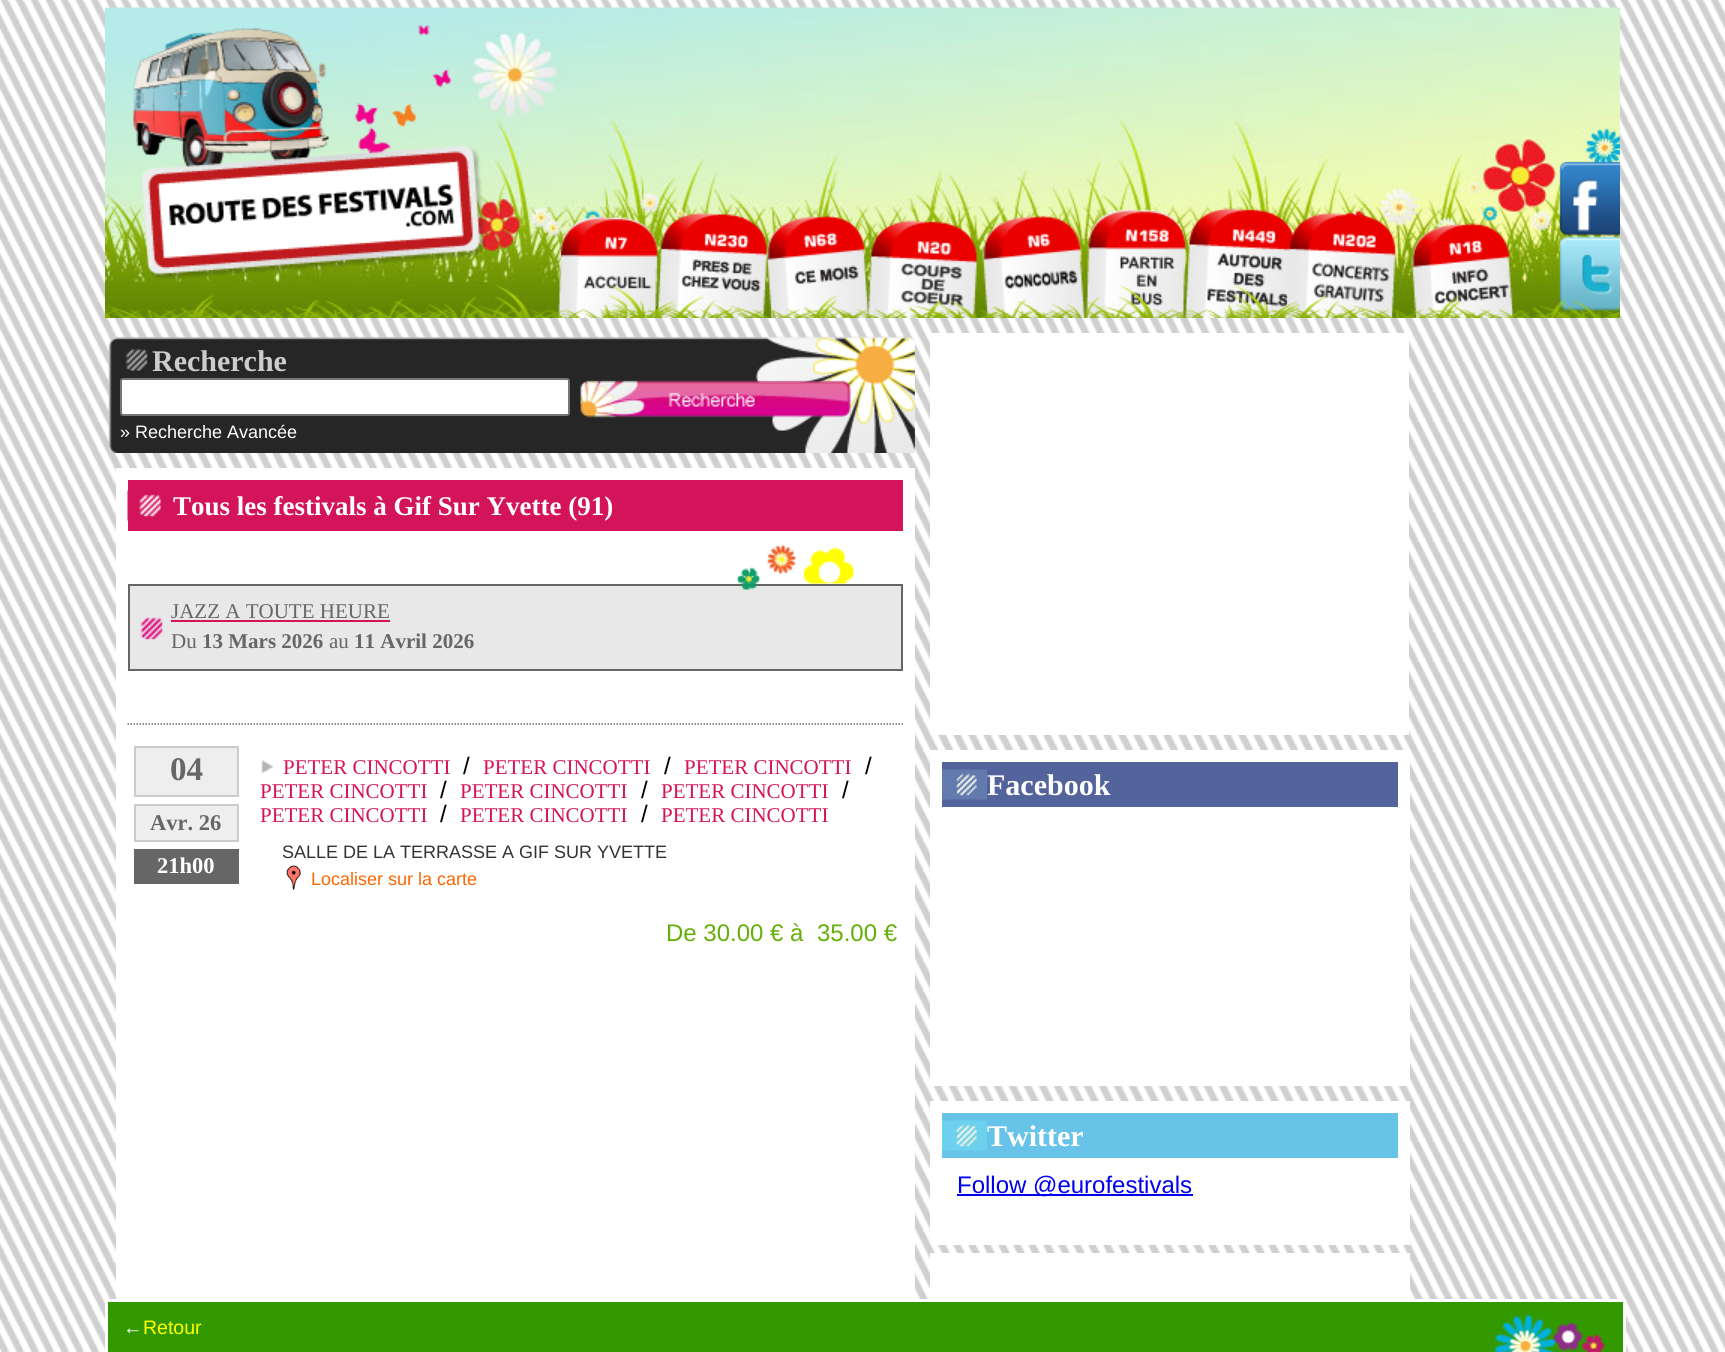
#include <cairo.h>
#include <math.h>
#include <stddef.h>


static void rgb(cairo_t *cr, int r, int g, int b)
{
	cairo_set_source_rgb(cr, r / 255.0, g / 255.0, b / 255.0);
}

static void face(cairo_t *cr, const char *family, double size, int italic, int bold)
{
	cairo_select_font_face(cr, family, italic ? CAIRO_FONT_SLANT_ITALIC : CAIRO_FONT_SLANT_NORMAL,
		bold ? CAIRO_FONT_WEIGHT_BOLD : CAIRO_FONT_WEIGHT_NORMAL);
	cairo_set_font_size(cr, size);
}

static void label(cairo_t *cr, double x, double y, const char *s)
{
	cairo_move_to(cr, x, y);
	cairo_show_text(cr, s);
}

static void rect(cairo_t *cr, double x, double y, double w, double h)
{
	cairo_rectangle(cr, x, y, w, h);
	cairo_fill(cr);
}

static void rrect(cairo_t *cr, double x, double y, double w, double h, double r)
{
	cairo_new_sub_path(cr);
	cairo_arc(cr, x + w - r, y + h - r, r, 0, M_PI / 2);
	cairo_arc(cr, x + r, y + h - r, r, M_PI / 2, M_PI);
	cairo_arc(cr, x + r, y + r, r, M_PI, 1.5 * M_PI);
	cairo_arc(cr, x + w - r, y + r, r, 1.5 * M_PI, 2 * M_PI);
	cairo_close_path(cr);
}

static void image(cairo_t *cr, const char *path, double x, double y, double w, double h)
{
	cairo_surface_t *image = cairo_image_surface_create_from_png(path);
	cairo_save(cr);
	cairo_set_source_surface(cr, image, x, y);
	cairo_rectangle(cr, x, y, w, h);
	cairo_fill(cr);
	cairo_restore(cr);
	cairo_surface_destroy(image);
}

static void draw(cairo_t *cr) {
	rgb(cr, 255, 255, 255);
	cairo_paint(cr);
	image(cr, "image0.png", 0, 0, 1725, 1352);
	image(cr, "image1.png", 105, 7, 1515, 311);
	image(cr, "image2.png", 132, 25, 354, 254);
	image(cr, "image3.png", 1559, 161, 61, 75);
	image(cr, "image4.png", 557, 215, 102, 103);
	image(cr, "image6.png", 766, 215, 103, 103);
	image(cr, "image5.png", 656, 212, 111, 106);
	image(cr, "image7.png", 867, 220, 110, 98);
	image(cr, "image8.png", 982, 215, 103, 103);
	image(cr, "image9.png", 1085, 208, 102, 110);
	image(cr, "image10.png", 1184, 208, 110, 110);
	image(cr, "image11.png", 1286, 212, 110, 106);
	image(cr, "image12.png", 1411, 223, 103, 95);
	image(cr, "image13.png", 1559, 236, 61, 75);
	image(cr, "image14.png", 105, 285, 1515, 33);
	image(cr, "image15.png", 108, 336, 807, 117);
	face(cr, "Liberation Serif", 30, 0, 1);
	rgb(cr, 204, 204, 204);
	label(cr, 152, 371, "Recherche");
	rgb(cr, 255, 255, 255);
	rrect(cr, 121, 379, 448, 36, 2);
	cairo_fill_preserve(cr);
	rgb(cr, 118, 118, 118);
	cairo_stroke(cr);
	image(cr, "image16.png", 580, 380, 271, 38);
	face(cr, "Liberation Sans", 18, 0, 0);
	rgb(cr, 255, 255, 255);
	label(cr, 120, 438, "» Recherche Avancée");
	rect(cr, 116, 468, 799, 831);
	rgb(cr, 212, 20, 90);
	rect(cr, 128, 480, 775, 51);
	image(cr, "image17.png", 127, 490, 34, 31);
	face(cr, "Liberation Serif", 27, 0, 1);
	rgb(cr, 255, 255, 255);
	label(cr, 173, 515, "Tous les festivals à Gif Sur Yvette (91)");
	rgb(cr, 232, 232, 232);
	rect(cr, 130, 586, 771, 83);
	image(cr, "image19.png", 140, 617, 23, 23);
	cairo_rectangle(cr, 129, 585, 773, 85);
	rgb(cr, 102, 102, 102);
	cairo_stroke(cr);
	image(cr, "image18.png", 736, 544, 118, 46);
	face(cr, "Liberation Serif", 21, 0, 0);
	label(cr, 171, 618, "JAZZ A TOUTE HEURE");
	rgb(cr, 212, 20, 90);
	rect(cr, 171, 620, 219, 2);
	rgb(cr, 102, 102, 102);
	label(cr, 171, 648, "Du");
	face(cr, "Liberation Serif", 21, 0, 1);
	label(cr, 202, 648, "13 Mars 2026");
	face(cr, "Liberation Serif", 21, 0, 0);
	label(cr, 329, 648, "au");
	face(cr, "Liberation Serif", 21, 0, 1);
	label(cr, 354, 648, "11 Avril 2026");
	cairo_new_path(cr);
	cairo_move_to(cr, 127.5, 724);
	cairo_line_to(cr, 903, 724);
	cairo_set_line_width(cr, 1.5);
	cairo_set_dash(cr, (double[]){1.5, 1.5}, 2, 0);
	cairo_stroke(cr);
	rgb(cr, 238, 238, 238);
	cairo_rectangle(cr, 135, 747, 103, 49);
	cairo_fill_preserve(cr);
	rgb(cr, 204, 204, 204);
	cairo_set_line_width(cr, 2);
	cairo_set_dash(cr, NULL, 0, 0);
	cairo_stroke(cr);
	face(cr, "Liberation Serif", 33, 0, 1);
	rgb(cr, 102, 102, 102);
	label(cr, 170, 780, "04");
	rgb(cr, 238, 238, 238);
	cairo_rectangle(cr, 135, 805, 103, 36);
	cairo_fill_preserve(cr);
	rgb(cr, 204, 204, 204);
	cairo_stroke(cr);
	face(cr, "Liberation Serif", 22.5, 0, 1);
	rgb(cr, 102, 102, 102);
	label(cr, 150, 830, "Avr. 26");
	rect(cr, 134, 849, 105, 35);
	rgb(cr, 255, 255, 255);
	label(cr, 157, 873, "21h00");
	image(cr, "image20.png", 261, 760, 13, 14);
	face(cr, "Liberation Serif", 21, 0, 0);
	rgb(cr, 212, 20, 90);
	label(cr, 283, 774, "PETER CINCOTTI");
	face(cr, "Liberation Sans", 24, 0, 0);
	rgb(cr, 0, 0, 0);
	label(cr, 463, 774, "/");
	face(cr, "Liberation Serif", 21, 0, 0);
	rgb(cr, 212, 20, 90);
	label(cr, 483, 774, "PETER CINCOTTI");
	face(cr, "Liberation Sans", 24, 0, 0);
	rgb(cr, 0, 0, 0);
	label(cr, 664, 774, "/");
	face(cr, "Liberation Serif", 21, 0, 0);
	rgb(cr, 212, 20, 90);
	label(cr, 684, 774, "PETER CINCOTTI");
	face(cr, "Liberation Sans", 24, 0, 0);
	rgb(cr, 0, 0, 0);
	label(cr, 865, 774, "/");
	face(cr, "Liberation Serif", 21, 0, 0);
	rgb(cr, 212, 20, 90);
	label(cr, 260, 798, "PETER CINCOTTI");
	face(cr, "Liberation Sans", 24, 0, 0);
	rgb(cr, 0, 0, 0);
	label(cr, 440, 798, "/");
	face(cr, "Liberation Serif", 21, 0, 0);
	rgb(cr, 212, 20, 90);
	label(cr, 460, 798, "PETER CINCOTTI");
	face(cr, "Liberation Sans", 24, 0, 0);
	rgb(cr, 0, 0, 0);
	label(cr, 641, 798, "/");
	face(cr, "Liberation Serif", 21, 0, 0);
	rgb(cr, 212, 20, 90);
	label(cr, 661, 798, "PETER CINCOTTI");
	face(cr, "Liberation Sans", 24, 0, 0);
	rgb(cr, 0, 0, 0);
	label(cr, 842, 798, "/");
	face(cr, "Liberation Serif", 21, 0, 0);
	rgb(cr, 212, 20, 90);
	label(cr, 260, 822, "PETER CINCOTTI");
	face(cr, "Liberation Sans", 24, 0, 0);
	rgb(cr, 0, 0, 0);
	label(cr, 440, 822, "/");
	face(cr, "Liberation Serif", 21, 0, 0);
	rgb(cr, 212, 20, 90);
	label(cr, 460, 822, "PETER CINCOTTI");
	face(cr, "Liberation Sans", 24, 0, 0);
	rgb(cr, 0, 0, 0);
	label(cr, 641, 822, "/");
	face(cr, "Liberation Serif", 21, 0, 0);
	rgb(cr, 212, 20, 90);
	label(cr, 661, 822, "PETER CINCOTTI");
	face(cr, "Liberation Sans", 18, 0, 0);
	rgb(cr, 51, 51, 51);
	label(cr, 282, 858, "SALLE DE LA TERRASSE A GIF SUR YVETTE");
	image(cr, "image21.png", 286, 865, 15, 25);
	rgb(cr, 255, 102, 0);
	label(cr, 311, 885, "Localiser sur la carte");
	face(cr, "Liberation Sans", 24, 0, 0);
	rgb(cr, 101, 175, 9);
	label(cr, 666, 941, "De 30.00 € à");
	label(cr, 817, 941, "35.00 €");
	rgb(cr, 51, 153, 0);
	rect(cr, 108, 1302, 1515, 50);
	rgb(cr, 255, 255, 255);
	rect(cr, 105, 1299, 1521, 3);
	rect(cr, 1623, 1299, 3, 53);
	rect(cr, 105, 1299, 3, 53);
	face(cr, "Liberation Sans", 19.5, 0, 0);
	label(cr, 123, 1334, "←");
	rgb(cr, 255, 255, 0);
	label(cr, 143, 1334, "Retour");
	image(cr, "image22.png", 1494, 1315, 112, 37);
	rgb(cr, 255, 255, 255);
	rect(cr, 930, 333, 479, 402);
	rect(cr, 930, 750, 480, 336);
	rgb(cr, 83, 100, 156);
	rect(cr, 942, 762, 456, 45);
	image(cr, "image23.png", 942, 769, 45, 31);
	face(cr, "Liberation Serif", 30, 0, 1);
	rgb(cr, 255, 255, 255);
	label(cr, 987, 795, "Facebook");
	rect(cr, 930, 1101, 480, 144);
	rgb(cr, 103, 196, 232);
	rect(cr, 942, 1113, 456, 45);
	image(cr, "image24.png", 942, 1120, 45, 31);
	rgb(cr, 255, 255, 255);
	label(cr, 987, 1146, "Twitter");
	rgb(cr, 0, 0, 238);
	rect(cr, 957, 1194, 236, 2);
	face(cr, "Liberation Sans", 24, 0, 0);
	label(cr, 957, 1193, "Follow @eurofestivals");
	rgb(cr, 255, 255, 255);
	rect(cr, 930, 1253, 480, 46);
}

int main(void) {
	cairo_surface_t *surface = cairo_image_surface_create(CAIRO_FORMAT_RGB24, 1725, 1352);
	cairo_t *cr = cairo_create(surface);
	cairo_font_options_t *options = cairo_font_options_create();
	cairo_font_options_set_hint_metrics(options, CAIRO_HINT_METRICS_OFF);
	cairo_font_options_set_hint_style(options, CAIRO_HINT_STYLE_NONE);
	cairo_set_font_options(cr, options);
	cairo_set_miter_limit(cr, 4);
	draw(cr);
	cairo_surface_write_to_png(surface, "render.png");
	cairo_font_options_destroy(options);
	cairo_destroy(cr);
	cairo_surface_destroy(surface);
	return 0;
}
